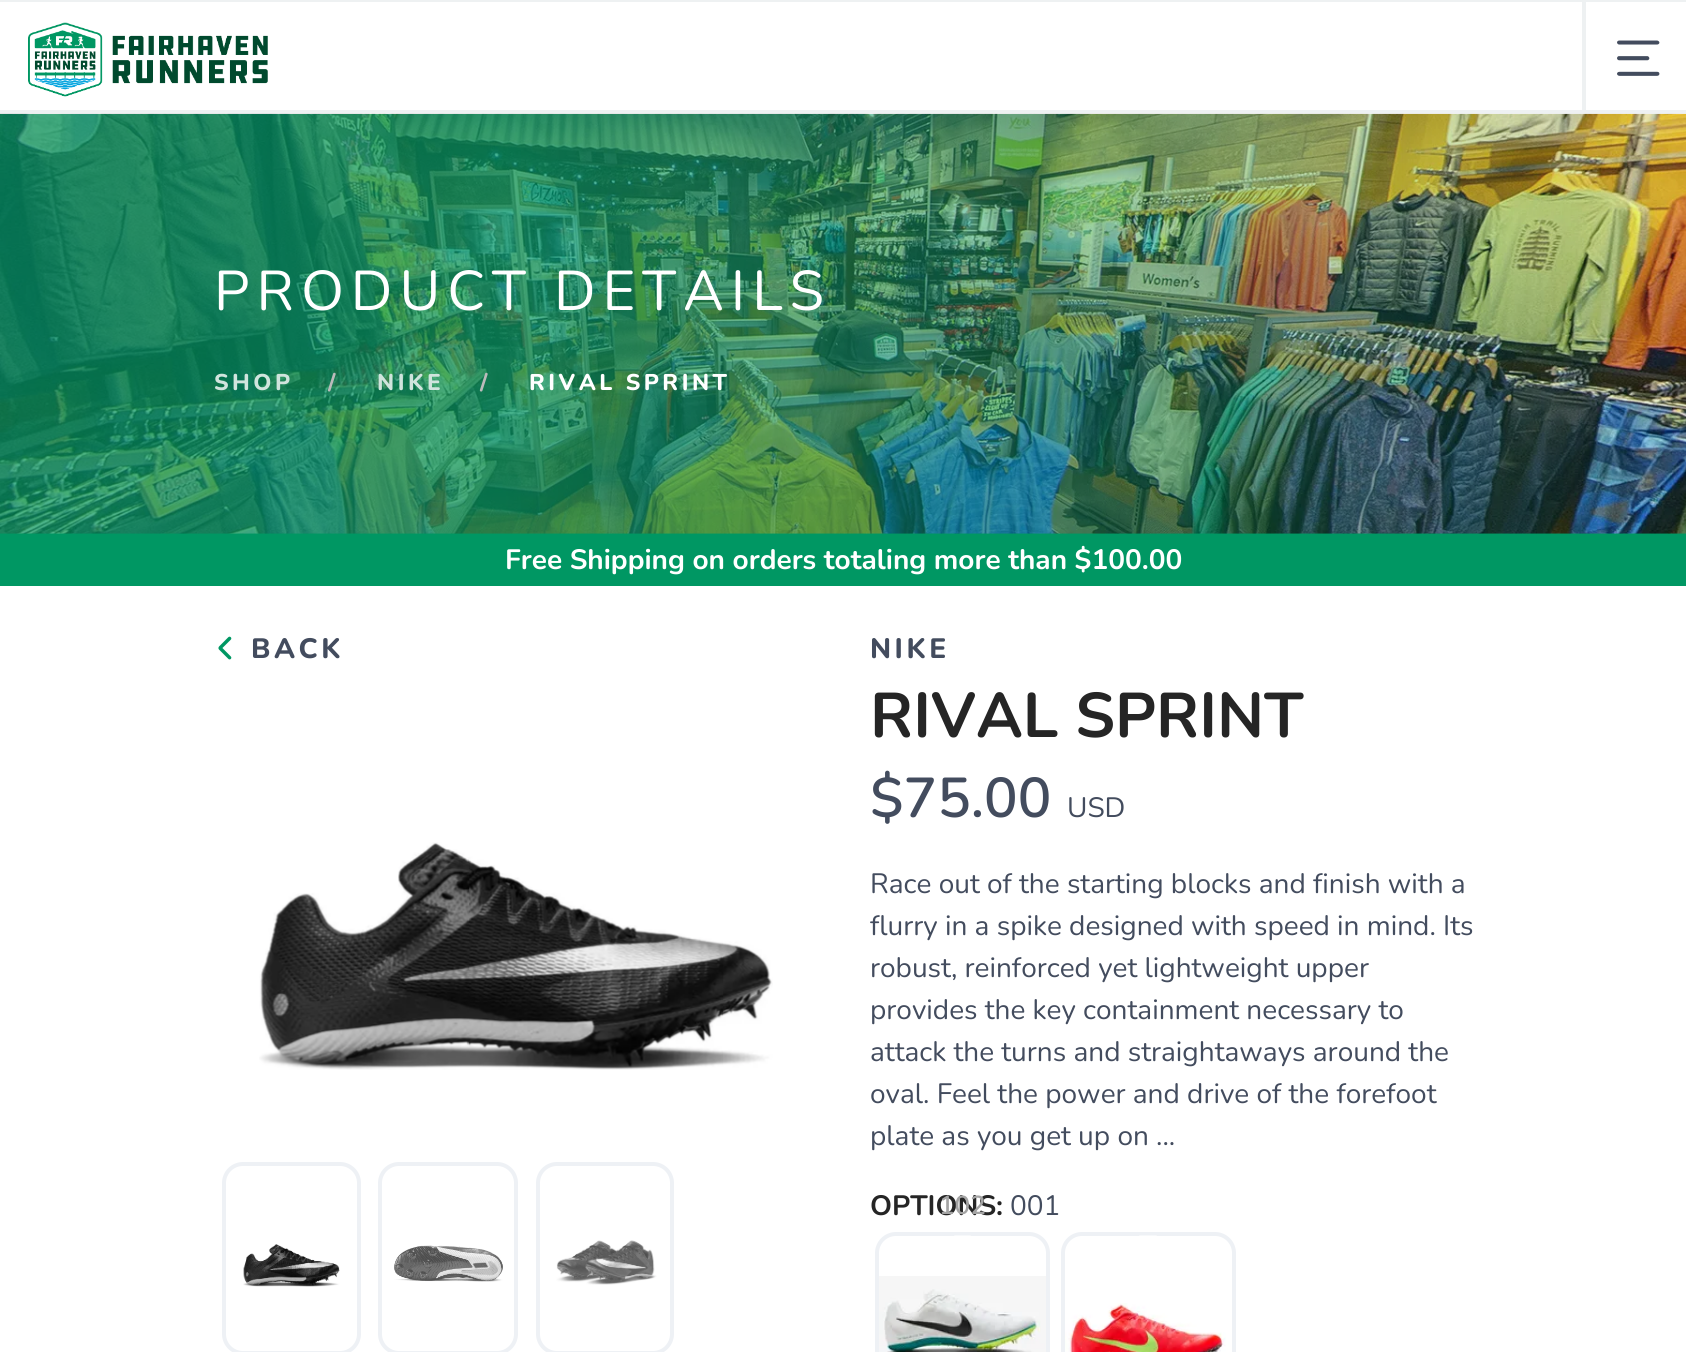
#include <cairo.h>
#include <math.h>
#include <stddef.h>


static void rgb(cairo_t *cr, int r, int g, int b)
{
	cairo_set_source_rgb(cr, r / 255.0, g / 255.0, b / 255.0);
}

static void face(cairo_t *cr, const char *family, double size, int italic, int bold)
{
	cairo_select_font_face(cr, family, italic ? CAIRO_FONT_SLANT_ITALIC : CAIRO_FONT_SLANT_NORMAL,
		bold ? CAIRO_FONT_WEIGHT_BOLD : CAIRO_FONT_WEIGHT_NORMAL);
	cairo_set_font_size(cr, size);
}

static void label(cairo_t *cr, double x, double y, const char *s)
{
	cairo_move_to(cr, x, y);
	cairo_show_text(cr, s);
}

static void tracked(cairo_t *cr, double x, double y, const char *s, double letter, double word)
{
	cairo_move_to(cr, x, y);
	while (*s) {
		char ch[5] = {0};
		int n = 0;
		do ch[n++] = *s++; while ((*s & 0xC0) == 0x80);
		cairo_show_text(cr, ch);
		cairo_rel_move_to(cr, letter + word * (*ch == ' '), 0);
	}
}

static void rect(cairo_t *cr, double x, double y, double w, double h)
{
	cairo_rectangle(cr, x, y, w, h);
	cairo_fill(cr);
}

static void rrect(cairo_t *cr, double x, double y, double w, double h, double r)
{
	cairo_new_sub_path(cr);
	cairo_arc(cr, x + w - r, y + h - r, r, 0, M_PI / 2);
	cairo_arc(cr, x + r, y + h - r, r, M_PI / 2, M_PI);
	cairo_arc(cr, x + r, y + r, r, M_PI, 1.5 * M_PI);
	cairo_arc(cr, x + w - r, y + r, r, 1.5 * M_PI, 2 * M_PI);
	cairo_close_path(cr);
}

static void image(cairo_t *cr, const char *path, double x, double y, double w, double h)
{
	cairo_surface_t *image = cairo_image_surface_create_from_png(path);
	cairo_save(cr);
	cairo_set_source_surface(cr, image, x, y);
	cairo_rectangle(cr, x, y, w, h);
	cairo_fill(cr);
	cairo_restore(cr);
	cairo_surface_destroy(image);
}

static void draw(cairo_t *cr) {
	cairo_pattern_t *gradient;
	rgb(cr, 255, 255, 255);
	cairo_paint(cr);
	rgb(cr, 238, 241, 242);
	rect(cr, 0, 0, 1686, 2);
	rect(cr, 0, 110, 1686, 4);
	image(cr, "image0.png", 28, 22, 240, 75);
	rect(cr, 1582, 2, 4, 108);
	image(cr, "image1.png", 1617, 40, 43, 36);
	rgb(cr, 0, 151, 99);
	rect(cr, 0, 533, 1686, 53);
	image(cr, "image2.png", 0, 113, 1686, 421);
	gradient = cairo_pattern_create_linear(0, 324, 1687, 324);
	cairo_pattern_add_color_stop_rgba(gradient, 0.3, 0, 0.592, 0.388, 0.7);
	cairo_pattern_add_color_stop_rgba(gradient, 1, 0, 0.592, 0.388, 0.07);
	cairo_set_source(cr, gradient);
	cairo_pattern_destroy(gradient);
	rect(cr, 0, 114, 1686, 420);
	face(cr, "Nunito", 56, 0, 0);
	rgb(cr, 255, 255, 255);
	tracked(cr, 214, 310, "PRODUCT DETAILS", 7, 0);
	face(cr, "Nunito ExtraBold", 22.75, 0, 0);
	rgb(cr, 208, 228, 221);
	tracked(cr, 214, 390, "SHOP", 3.5, 0);
	rgb(cr, 187, 187, 187);
	tracked(cr, 328, 390, "/", 3.5, 0);
	rgb(cr, 208, 228, 221);
	tracked(cr, 377, 390, "NIKE", 3.5, 0);
	rgb(cr, 187, 187, 187);
	tracked(cr, 480, 390, "/", 3.5, 0);
	rgb(cr, 255, 255, 255);
	tracked(cr, 529, 390, "RIVAL SPRINT", 3.5, 0);
	face(cr, "Nunito", 28, 0, 1);
	label(cr, 505, 569, "Free Shipping on orders totaling more than $100.00");
	image(cr, "image3.png", 218, 636, 14, 24);
	face(cr, "Nunito ExtraBold", 28, 0, 0);
	rgb(cr, 67, 76, 94);
	tracked(cr, 251, 658, "BACK", 3.5, 0);
	image(cr, "image4.png", 259, 842, 514, 228);
	rrect(cr, 224, 1164, 135, 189, 19);
	rgb(cr, 238, 241, 245);
	cairo_set_line_width(cr, 4);
	cairo_stroke(cr);
	image(cr, "image5.png", 243, 1244, 97, 43);
	rrect(cr, 380, 1164, 136, 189, 19);
	cairo_stroke(cr);
	image(cr, "image6.png", 394, 1245, 109, 37);
	rrect(cr, 538, 1164, 134, 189, 19);
	cairo_stroke(cr);
	image(cr, "image7.png", 556, 1240, 101, 45);
	rgb(cr, 67, 76, 94);
	tracked(cr, 870, 658, "NIKE", 3.5, 0);
	face(cr, "Nunito", 63, 0, 1);
	rgb(cr, 37, 37, 37);
	label(cr, 870, 737, "RIVAL SPRINT");
	face(cr, "Nunito SemiBold", 56, 0, 0);
	rgb(cr, 67, 76, 94);
	label(cr, 870, 817, "$75.00");
	face(cr, "Nunito", 28, 0, 0);
	label(cr, 1067, 817, "USD");
	label(cr, 870, 893, "Race out of the starting blocks and finish with a");
	label(cr, 870, 935, "flurry in a spike designed with speed in mind. Its");
	label(cr, 870, 977, "robust, reinforced yet lightweight upper");
	label(cr, 870, 1019, "provides the key containment necessary to");
	label(cr, 870, 1061, "attack the turns and straightaways around the");
	label(cr, 870, 1103, "oval. Feel the power and drive of the forefoot");
	label(cr, 870, 1145, "plate as you get up on ...");
	face(cr, "Nunito", 28, 0, 1);
	rgb(cr, 37, 37, 37);
	label(cr, 870, 1215, "OPTIONS:");
	image(cr, "image8.png", 879, 1276, 167, 76);
	rrect(cr, 877, 1234, 171, 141, 19);
	rgb(cr, 238, 241, 245);
	cairo_stroke(cr);
	face(cr, "Nunito SemiBold", 26, 0, 0);
	rgb(cr, 164, 164, 164);
	label(cr, 939, 1214, "102");
	rgb(cr, 255, 255, 255);
	cairo_new_path(cr);
	cairo_move_to(cr, 954, 1235.5);
	cairo_line_to(cr, 971, 1235.5);
	cairo_line_to(cr, 962.5, 1244);
	cairo_close_path(cr);
	cairo_fill(cr);
	image(cr, "image9.png", 1065, 1303, 161, 49);
	rrect(cr, 1063, 1234, 171, 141, 19);
	rgb(cr, 238, 241, 245);
	cairo_stroke(cr);
	rgb(cr, 255, 255, 255);
	cairo_new_path(cr);
	cairo_move_to(cr, 1139, 1235.5);
	cairo_line_to(cr, 1157, 1235.5);
	cairo_line_to(cr, 1148, 1244);
	cairo_close_path(cr);
	cairo_fill(cr);
	face(cr, "Nunito", 28, 0, 0);
	rgb(cr, 67, 76, 94);
	label(cr, 1010, 1215, "001");
}

int main(void) {
	cairo_surface_t *surface = cairo_image_surface_create(CAIRO_FORMAT_RGB24, 1686, 1352);
	cairo_t *cr = cairo_create(surface);
	cairo_font_options_t *options = cairo_font_options_create();
	cairo_font_options_set_hint_metrics(options, CAIRO_HINT_METRICS_OFF);
	cairo_font_options_set_hint_style(options, CAIRO_HINT_STYLE_NONE);
	cairo_set_font_options(cr, options);
	cairo_set_miter_limit(cr, 4);
	draw(cr);
	cairo_surface_write_to_png(surface, "render.png");
	cairo_font_options_destroy(options);
	cairo_destroy(cr);
	cairo_surface_destroy(surface);
	return 0;
}
